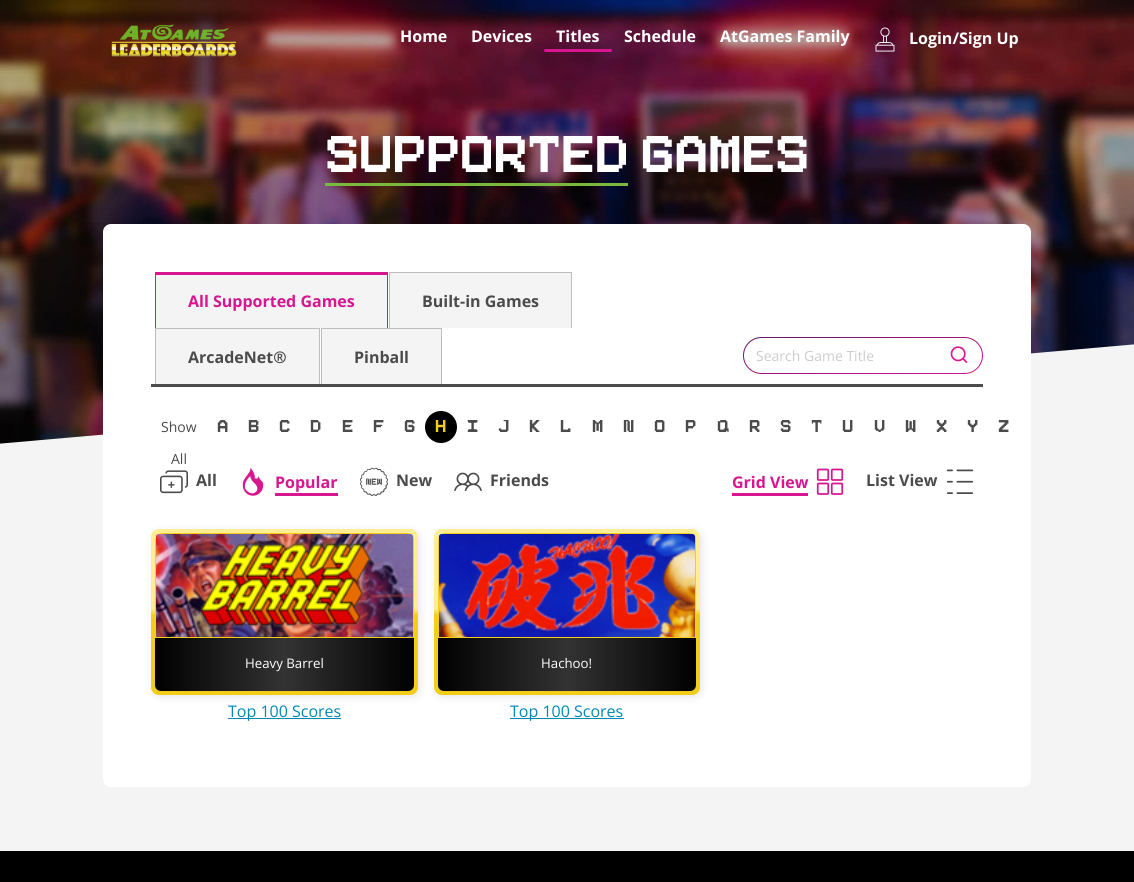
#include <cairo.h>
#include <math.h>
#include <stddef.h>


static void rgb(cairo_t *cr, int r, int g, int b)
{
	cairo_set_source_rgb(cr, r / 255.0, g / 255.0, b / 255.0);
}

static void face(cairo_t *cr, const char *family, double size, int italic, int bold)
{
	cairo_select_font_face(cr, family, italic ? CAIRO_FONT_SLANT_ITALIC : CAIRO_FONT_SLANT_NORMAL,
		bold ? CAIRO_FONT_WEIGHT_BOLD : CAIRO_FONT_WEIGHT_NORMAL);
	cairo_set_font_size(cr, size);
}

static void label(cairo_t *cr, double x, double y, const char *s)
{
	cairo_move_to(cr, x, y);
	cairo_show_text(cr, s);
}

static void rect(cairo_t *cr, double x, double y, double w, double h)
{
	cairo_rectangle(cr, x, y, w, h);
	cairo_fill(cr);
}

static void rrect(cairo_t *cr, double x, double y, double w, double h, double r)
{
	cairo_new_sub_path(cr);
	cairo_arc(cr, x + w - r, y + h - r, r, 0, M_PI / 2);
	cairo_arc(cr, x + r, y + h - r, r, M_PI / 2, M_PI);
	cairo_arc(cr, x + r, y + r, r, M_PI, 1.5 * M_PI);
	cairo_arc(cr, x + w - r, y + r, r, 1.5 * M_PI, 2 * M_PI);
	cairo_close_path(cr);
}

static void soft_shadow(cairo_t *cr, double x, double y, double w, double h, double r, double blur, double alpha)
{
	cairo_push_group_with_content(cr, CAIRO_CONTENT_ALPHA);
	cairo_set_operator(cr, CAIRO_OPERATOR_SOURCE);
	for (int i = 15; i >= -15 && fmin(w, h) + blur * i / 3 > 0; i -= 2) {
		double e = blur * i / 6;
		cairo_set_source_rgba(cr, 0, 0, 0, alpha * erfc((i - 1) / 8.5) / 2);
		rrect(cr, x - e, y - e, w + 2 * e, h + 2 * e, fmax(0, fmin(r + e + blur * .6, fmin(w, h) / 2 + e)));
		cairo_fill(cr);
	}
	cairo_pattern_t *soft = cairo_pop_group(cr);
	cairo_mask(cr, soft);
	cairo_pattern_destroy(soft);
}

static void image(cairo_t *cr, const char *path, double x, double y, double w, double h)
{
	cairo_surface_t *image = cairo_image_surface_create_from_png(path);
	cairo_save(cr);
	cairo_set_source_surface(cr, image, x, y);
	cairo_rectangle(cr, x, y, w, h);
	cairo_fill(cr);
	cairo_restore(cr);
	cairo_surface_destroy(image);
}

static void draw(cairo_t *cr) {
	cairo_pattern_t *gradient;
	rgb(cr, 244, 244, 244);
	cairo_paint(cr);
	image(cr, "image2.png", 0, 0, 1134, 444);
	image(cr, "image0.png", 111, 23, 126, 34);
	face(cr, "Open Sans", 16, 0, 1);
	rgb(cr, 255, 255, 255);
	label(cr, 400, 42, "Home");
	label(cr, 471, 42, "Devices");
	label(cr, 556, 42, "Titles");
	rgb(cr, 216, 22, 144);
	rrect(cr, 544, 49, 68, 3, 1.5);
	cairo_fill(cr);
	rgb(cr, 255, 255, 255);
	label(cr, 624, 42, "Schedule");
	label(cr, 720, 42, "AtGames Family");
	image(cr, "image1.png", 875, 27, 20, 25);
	label(cr, 909, 44, "Login/Sign Up");
	face(cr, "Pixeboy", 72, 0, 0);
	label(cr, 325, 172, "Supported Games");
	rgb(cr, 123, 184, 62);
	rect(cr, 325, 183, 303, 3);
	cairo_save(cr);
	cairo_rectangle(cr, 0, 0, 1134, 544);
	cairo_clip(cr);
	rgb(cr, 244, 244, 244);
	cairo_new_path(cr);
	cairo_move_to(cr, -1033, 534);
	cairo_line_to(cr, 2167, 254);
	cairo_line_to(cr, 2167, 554);
	cairo_line_to(cr, -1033, 834);
	cairo_close_path(cr);
	cairo_fill(cr);
	cairo_restore(cr);
	rgb(cr, 255, 255, 255);
	rrect(cr, 103, 224, 928, 563, 8);
	cairo_fill(cr);
	rgb(cr, 75, 75, 75);
	rect(cr, 151, 384, 832, 3);
	rgb(cr, 244, 244, 244);
	rect(cr, 156, 275, 231, 53);
	rgb(cr, 216, 22, 144);
	rect(cr, 155, 272, 233, 1);
	rect(cr, 387, 272, 1, 56);
	rect(cr, 155, 272, 1, 56);
	rect(cr, 156, 273, 231, 2);
	face(cr, "Open Sans", 16, 0, 1);
	label(cr, 188, 307, "All Supported Games");
	rgb(cr, 244, 244, 244);
	rect(cr, 390, 273, 181, 55);
	rgb(cr, 189, 189, 189);
	rect(cr, 389, 272, 183, 1);
	rect(cr, 571, 272, 1, 56);
	rect(cr, 389, 272, 1, 56);
	rgb(cr, 75, 75, 75);
	label(cr, 422, 307, "Built-in Games");
	rgb(cr, 244, 244, 244);
	rect(cr, 156, 329, 163, 55);
	rgb(cr, 189, 189, 189);
	rect(cr, 155, 328, 165, 1);
	rect(cr, 319, 328, 1, 56);
	rect(cr, 155, 328, 1, 56);
	rgb(cr, 75, 75, 75);
	label(cr, 188, 363, "ArcadeNet®");
	rgb(cr, 244, 244, 244);
	rect(cr, 322, 329, 119, 55);
	rgb(cr, 189, 189, 189);
	rect(cr, 321, 328, 121, 1);
	rect(cr, 441, 328, 1, 56);
	rect(cr, 321, 328, 1, 56);
	rgb(cr, 75, 75, 75);
	label(cr, 354, 363, "Pinball");
	gradient = cairo_pattern_create_linear(856, 317, 870, 394);
	cairo_pattern_add_color_stop_rgba(gradient, 0, 0.384, 0.078, 0.38, 1);
	cairo_pattern_add_color_stop_rgba(gradient, 1, 0.847, 0.086, 0.565, 1);
	cairo_set_source(cr, gradient);
	cairo_pattern_destroy(gradient);
	rrect(cr, 743, 337, 240, 37, 18.5);
	cairo_fill(cr);
	rgb(cr, 255, 255, 255);
	rrect(cr, 744, 338, 238, 35, 17.5);
	cairo_fill(cr);
	face(cr, "Open Sans", 14, 0, 0);
	rgb(cr, 204, 204, 204);
	label(cr, 756, 361, "Search Game Title");
	image(cr, "image3.png", 950, 346, 18, 17);
	rgb(cr, 75, 75, 75);
	label(cr, 161, 432, "Show");
	label(cr, 171, 464, "All");
	face(cr, "Pixeboy", 24, 0, 0);
	label(cr, 217, 432, "A");
	label(cr, 248, 432, "B");
	label(cr, 279, 432, "C");
	label(cr, 310, 432, "D");
	label(cr, 342, 432, "E");
	label(cr, 373, 432, "F");
	label(cr, 404, 432, "G");
	rgb(cr, 0, 0, 0);
	cairo_new_path(cr);
	cairo_arc(cr, 441, 427, 16, 0, 2 * M_PI);
	cairo_fill(cr);
	rgb(cr, 242, 206, 27);
	label(cr, 435, 432, "H");
	rgb(cr, 75, 75, 75);
	label(cr, 467, 432, "I");
	label(cr, 498, 432, "J");
	label(cr, 529, 432, "K");
	label(cr, 560, 432, "L");
	label(cr, 592, 432, "M");
	label(cr, 623, 432, "N");
	label(cr, 654, 432, "O");
	label(cr, 685, 432, "P");
	label(cr, 717, 432, "Q");
	label(cr, 749, 432, "R");
	label(cr, 780, 432, "S");
	label(cr, 811, 432, "T");
	label(cr, 842, 432, "U");
	label(cr, 874, 432, "V");
	label(cr, 905, 432, "W");
	label(cr, 936, 432, "X");
	label(cr, 967, 432, "Y");
	label(cr, 998, 432, "Z");
	image(cr, "image4.png", 160, 470, 28, 24);
	face(cr, "Open Sans", 16, 0, 1);
	label(cr, 196, 486, "All");
	image(cr, "image5.png", 242, 467, 22, 29);
	rgb(cr, 216, 22, 144);
	label(cr, 275, 488, "Popular");
	rect(cr, 275, 493, 63, 3);
	image(cr, "image6.png", 360, 467, 28, 29);
	rgb(cr, 75, 75, 75);
	label(cr, 396, 486, "New");
	image(cr, "image7.png", 454, 472, 28, 19);
	label(cr, 490, 486, "Friends");
	rgb(cr, 216, 22, 144);
	label(cr, 732, 488, "Grid View");
	rect(cr, 732, 493, 76, 3);
	image(cr, "image8.png", 816, 468, 28, 27);
	rgb(cr, 75, 75, 75);
	label(cr, 866, 486, "List View");
	image(cr, "image9.png", 946, 469, 28, 25);
	rgb(cr, 0, 0, 0);
	soft_shadow(cr, 153, 531, 267, 166, 8, 4, 0.1);
	gradient = cairo_pattern_create_linear(285, 529, 285, 695);
	cairo_pattern_add_color_stop_rgba(gradient, 0, 1, 0.929, 0.576, 1);
	cairo_pattern_add_color_stop_rgba(gradient, 0.48, 1, 0.929, 0.576, 1);
	cairo_pattern_add_color_stop_rgba(gradient, 0.52, 0.949, 0.808, 0.106, 1);
	cairo_pattern_add_color_stop_rgba(gradient, 1, 0.949, 0.808, 0.106, 1);
	cairo_set_source(cr, gradient);
	cairo_pattern_destroy(gradient);
	rrect(cr, 151, 529, 267, 166, 8);
	cairo_fill(cr);
	rgb(cr, 255, 255, 255);
	rrect(cr, 155, 533, 259, 158, 6);
	cairo_fill(cr);
	rgb(cr, 242, 206, 27);
	cairo_set_fill_rule(cr, CAIRO_FILL_RULE_EVEN_ODD);
	cairo_new_path(cr);
	cairo_move_to(cr, 155, 539);
	cairo_line_to(cr, 155, 638);
	cairo_line_to(cr, 414, 638);
	cairo_line_to(cr, 414, 539);
	cairo_curve_to(cr, 414, 538, 414, 537, 413, 536);
	cairo_line_to(cr, 413, 637);
	cairo_line_to(cr, 156, 637);
	cairo_line_to(cr, 156, 536);
	cairo_close_path(cr);
	cairo_move_to(cr, 161, 533);
	cairo_line_to(cr, 158, 534);
	cairo_line_to(cr, 411, 534);
	cairo_line_to(cr, 408, 533);
	cairo_close_path(cr);
	cairo_fill(cr);
	image(cr, "image10.png", 156, 534, 257, 103);
	gradient = cairo_pattern_create_linear(155, 665, 414, 665);
	cairo_pattern_add_color_stop_rgba(gradient, 0, 0, 0, 0, 1);
	cairo_pattern_add_color_stop_rgba(gradient, 0.5, 0.2, 0.2, 0.2, 1);
	cairo_pattern_add_color_stop_rgba(gradient, 1, 0, 0, 0, 1);
	cairo_set_source(cr, gradient);
	cairo_pattern_destroy(gradient);
	cairo_new_path(cr);
	cairo_move_to(cr, 155, 638);
	cairo_line_to(cr, 414, 638);
	cairo_line_to(cr, 414, 685);
	cairo_curve_to(cr, 414, 688.5, 411.5, 691, 408, 691);
	cairo_line_to(cr, 161, 691);
	cairo_curve_to(cr, 157.5, 691, 155, 688.5, 155, 685);
	cairo_close_path(cr);
	cairo_fill(cr);
	face(cr, "Open Sans", 13.25, 0, 0);
	rgb(cr, 255, 255, 255);
	label(cr, 245, 668, "Heavy Barrel");
	rgb(cr, 1, 137, 181);
	rect(cr, 228, 718, 113, 1);
	face(cr, "Open Sans", 16, 0, 0);
	label(cr, 228, 717, "Top 100 Scores");
	rgb(cr, 0, 0, 0);
	soft_shadow(cr, 436, 531, 266, 166, 8, 4, 0.1);
	gradient = cairo_pattern_create_linear(567, 529, 567, 695);
	cairo_pattern_add_color_stop_rgba(gradient, 0, 1, 0.929, 0.576, 1);
	cairo_pattern_add_color_stop_rgba(gradient, 0.48, 1, 0.929, 0.576, 1);
	cairo_pattern_add_color_stop_rgba(gradient, 0.52, 0.949, 0.808, 0.106, 1);
	cairo_pattern_add_color_stop_rgba(gradient, 1, 0.949, 0.808, 0.106, 1);
	cairo_set_source(cr, gradient);
	cairo_pattern_destroy(gradient);
	rrect(cr, 434, 529, 266, 166, 8);
	cairo_fill(cr);
	rgb(cr, 255, 255, 255);
	rrect(cr, 438, 533, 258, 158, 6);
	cairo_fill(cr);
	rgb(cr, 242, 206, 27);
	cairo_new_path(cr);
	cairo_move_to(cr, 438, 539);
	cairo_line_to(cr, 438, 638);
	cairo_line_to(cr, 696, 638);
	cairo_line_to(cr, 696, 539);
	cairo_curve_to(cr, 696, 538, 696, 537, 695, 536);
	cairo_line_to(cr, 695, 637);
	cairo_line_to(cr, 439, 637);
	cairo_line_to(cr, 439, 536);
	cairo_close_path(cr);
	cairo_move_to(cr, 444, 533);
	cairo_line_to(cr, 441, 534);
	cairo_line_to(cr, 693, 534);
	cairo_line_to(cr, 690, 533);
	cairo_close_path(cr);
	cairo_fill(cr);
	image(cr, "image11.png", 439, 534, 256, 103);
	gradient = cairo_pattern_create_linear(438, 665, 696, 665);
	cairo_pattern_add_color_stop_rgba(gradient, 0, 0, 0, 0, 1);
	cairo_pattern_add_color_stop_rgba(gradient, 0.5, 0.2, 0.2, 0.2, 1);
	cairo_pattern_add_color_stop_rgba(gradient, 1, 0, 0, 0, 1);
	cairo_set_source(cr, gradient);
	cairo_pattern_destroy(gradient);
	cairo_new_path(cr);
	cairo_move_to(cr, 438, 638);
	cairo_line_to(cr, 696, 638);
	cairo_line_to(cr, 696, 685);
	cairo_curve_to(cr, 696, 688.5, 693.5, 691, 690, 691);
	cairo_line_to(cr, 444, 691);
	cairo_curve_to(cr, 440.5, 691, 438, 688.5, 438, 685);
	cairo_close_path(cr);
	cairo_fill(cr);
	face(cr, "Open Sans", 13.25, 0, 0);
	rgb(cr, 255, 255, 255);
	label(cr, 541, 668, "Hachoo!");
	rgb(cr, 1, 137, 181);
	rect(cr, 510, 718, 114, 1);
	face(cr, "Open Sans", 16, 0, 0);
	label(cr, 510, 717, "Top 100 Scores");
	rgb(cr, 0, 0, 0);
	rect(cr, 0, 851, 1134, 31);
}

int main(void) {
	cairo_surface_t *surface = cairo_image_surface_create(CAIRO_FORMAT_RGB24, 1134, 882);
	cairo_t *cr = cairo_create(surface);
	cairo_font_options_t *options = cairo_font_options_create();
	cairo_font_options_set_hint_metrics(options, CAIRO_HINT_METRICS_OFF);
	cairo_font_options_set_hint_style(options, CAIRO_HINT_STYLE_NONE);
	cairo_set_font_options(cr, options);
	cairo_set_miter_limit(cr, 4);
	draw(cr);
	cairo_surface_write_to_png(surface, "render.png");
	cairo_font_options_destroy(options);
	cairo_destroy(cr);
	cairo_surface_destroy(surface);
	return 0;
}
